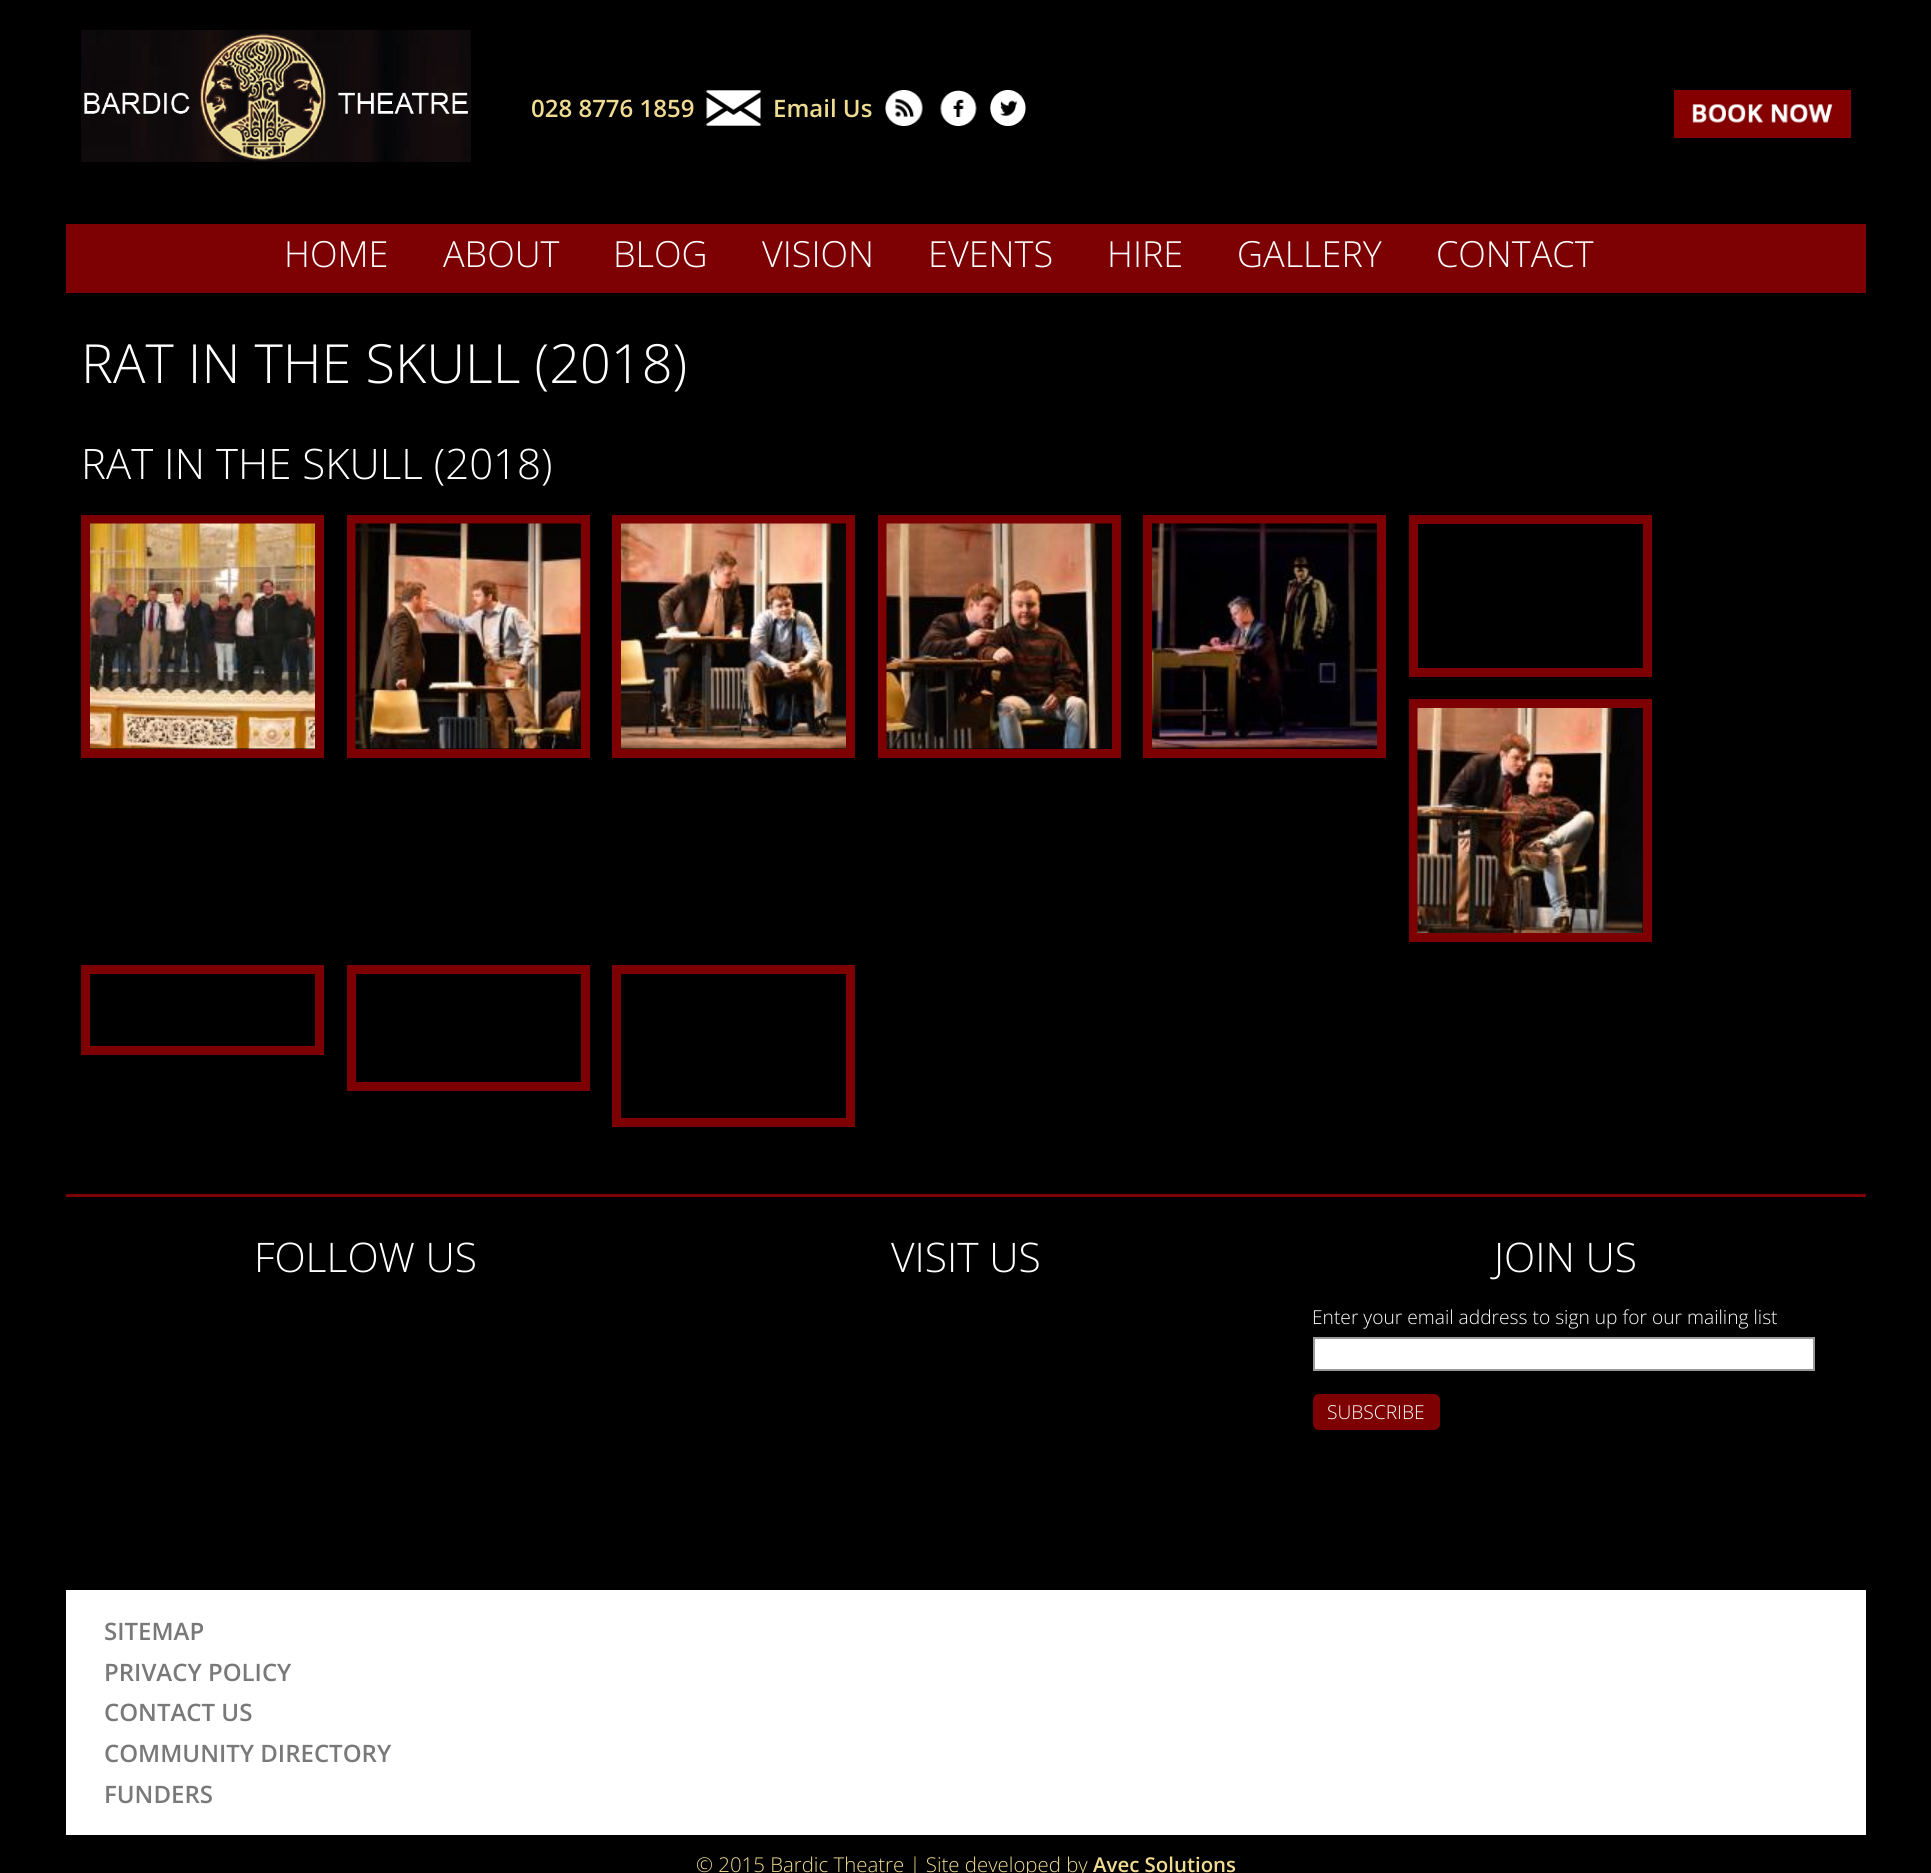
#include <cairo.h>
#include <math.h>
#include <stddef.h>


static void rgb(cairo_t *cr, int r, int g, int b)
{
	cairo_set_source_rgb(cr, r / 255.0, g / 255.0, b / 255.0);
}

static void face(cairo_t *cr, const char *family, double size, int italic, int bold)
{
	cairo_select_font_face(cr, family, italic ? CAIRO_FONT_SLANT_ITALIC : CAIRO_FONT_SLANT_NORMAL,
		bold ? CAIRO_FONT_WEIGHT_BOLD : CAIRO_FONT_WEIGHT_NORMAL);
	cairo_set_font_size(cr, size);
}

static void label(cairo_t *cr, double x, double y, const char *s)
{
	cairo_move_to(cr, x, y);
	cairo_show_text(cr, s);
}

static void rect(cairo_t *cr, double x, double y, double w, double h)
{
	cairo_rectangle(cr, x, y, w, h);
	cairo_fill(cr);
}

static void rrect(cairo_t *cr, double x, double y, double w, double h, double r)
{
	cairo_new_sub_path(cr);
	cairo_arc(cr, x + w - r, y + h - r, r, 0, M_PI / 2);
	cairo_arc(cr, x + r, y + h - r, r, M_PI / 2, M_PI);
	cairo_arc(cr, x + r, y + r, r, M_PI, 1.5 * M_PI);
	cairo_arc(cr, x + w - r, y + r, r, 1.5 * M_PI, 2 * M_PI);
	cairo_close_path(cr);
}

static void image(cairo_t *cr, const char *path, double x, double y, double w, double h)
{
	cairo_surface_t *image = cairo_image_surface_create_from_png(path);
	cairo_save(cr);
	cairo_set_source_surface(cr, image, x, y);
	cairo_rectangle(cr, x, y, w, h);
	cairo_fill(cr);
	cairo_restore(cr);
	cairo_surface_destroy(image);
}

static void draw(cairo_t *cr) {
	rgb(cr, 0, 0, 0);
	cairo_paint(cr);
	image(cr, "image0.png", 81, 30, 390, 132);
	face(cr, "Open Sans SemiBold", 24, 0, 0);
	rgb(cr, 240, 219, 146);
	label(cr, 531, 117, "028 8776 1859");
	image(cr, "image1.png", 706, 90, 55, 36);
	label(cr, 773, 117, "Email Us");
	image(cr, "image2.png", 885, 90, 38, 36);
	image(cr, "image3.png", 940, 90, 37, 36);
	image(cr, "image4.png", 990, 90, 36, 36);
	image(cr, "image5.png", 1674, 90, 177, 48);
	rgb(cr, 125, 0, 2);
	rect(cr, 66, 224, 1800, 69);
	face(cr, "Open Sans Light", 36, 0, 0);
	rgb(cr, 255, 255, 255);
	label(cr, 284, 267, "HOME");
	label(cr, 443, 267, "ABOUT");
	label(cr, 613, 267, "BLOG");
	label(cr, 762, 267, "VISION");
	label(cr, 928, 267, "EVENTS");
	label(cr, 1107, 267, "HIRE");
	label(cr, 1237, 267, "GALLERY");
	label(cr, 1436, 267, "CONTACT");
	face(cr, "Open Sans Light", 54, 0, 0);
	label(cr, 81, 383, "RAT IN THE SKULL (2018)");
	face(cr, "Open Sans Light", 42, 0, 0);
	label(cr, 81, 479, "RAT IN THE SKULL (2018)");
	cairo_rectangle(cr, 85.5, 519.5, 234, 234);
	rgb(cr, 125, 0, 2);
	cairo_set_line_width(cr, 9);
	cairo_stroke(cr);
	image(cr, "image6.png", 90, 523, 225, 226);
	cairo_rectangle(cr, 351.5, 519.5, 234, 234);
	cairo_stroke(cr);
	image(cr, "image7.png", 355, 523, 226, 226);
	cairo_rectangle(cr, 616.5, 519.5, 234, 234);
	cairo_stroke(cr);
	image(cr, "image8.png", 621, 523, 225, 226);
	cairo_rectangle(cr, 882.5, 519.5, 234, 234);
	cairo_stroke(cr);
	image(cr, "image9.png", 886, 523, 226, 226);
	cairo_rectangle(cr, 1147.5, 519.5, 234, 234);
	cairo_stroke(cr);
	image(cr, "image10.png", 1152, 523, 225, 226);
	cairo_rectangle(cr, 1413.5, 519.5, 234, 153);
	cairo_stroke(cr);
	cairo_rectangle(cr, 1413.5, 703.5, 234, 234);
	cairo_stroke(cr);
	image(cr, "image11.png", 1417, 708, 226, 225);
	cairo_rectangle(cr, 85.5, 969.5, 234, 81);
	cairo_stroke(cr);
	cairo_rectangle(cr, 351.5, 969.5, 234, 117);
	cairo_stroke(cr);
	cairo_rectangle(cr, 616.5, 969.5, 234, 153);
	cairo_stroke(cr);
	rect(cr, 66, 1194, 1800, 3);
	face(cr, "Open Sans Light", 40.75, 0, 0);
	rgb(cr, 255, 255, 255);
	label(cr, 254, 1272, "FOLLOW US");
	label(cr, 891, 1272, "VISIT US");
	label(cr, 1494, 1272, "JOIN US");
	face(cr, "Open Sans Light", 19.2, 0, 0);
	label(cr, 1312, 1324, "Enter your email address to sign up for our mailing list");
	cairo_rectangle(cr, 1314, 1338, 500, 32);
	cairo_fill_preserve(cr);
	rgb(cr, 153, 153, 153);
	cairo_set_line_width(cr, 2);
	cairo_stroke(cr);
	rgb(cr, 125, 0, 2);
	rrect(cr, 1313, 1394, 127, 36, 6);
	cairo_fill(cr);
	rgb(cr, 255, 255, 255);
	label(cr, 1327, 1419, "SUBSCRIBE");
	rect(cr, 66, 1590, 1800, 245);
	face(cr, "Open Sans SemiBold", 24, 0, 0);
	rgb(cr, 121, 121, 121);
	label(cr, 104, 1640, "SITEMAP");
	label(cr, 104, 1681, "PRIVACY POLICY");
	label(cr, 104, 1721, "CONTACT US");
	label(cr, 104, 1762, "COMMUNITY DIRECTORY");
	label(cr, 104, 1803, "FUNDERS");
	face(cr, "Open Sans Light", 20.4, 0, 0);
	rgb(cr, 240, 219, 146);
	label(cr, 696, 1872, "© 2015 Bardic Theatre | Site developed by");
	face(cr, "Open Sans SemiBold", 20.4, 0, 0);
	label(cr, 1093, 1872, "Avec Solutions");
}

int main(void) {
	cairo_surface_t *surface = cairo_image_surface_create(CAIRO_FORMAT_RGB24, 1931, 1873);
	cairo_t *cr = cairo_create(surface);
	cairo_font_options_t *options = cairo_font_options_create();
	cairo_font_options_set_hint_metrics(options, CAIRO_HINT_METRICS_OFF);
	cairo_font_options_set_hint_style(options, CAIRO_HINT_STYLE_NONE);
	cairo_set_font_options(cr, options);
	cairo_set_miter_limit(cr, 4);
	draw(cr);
	cairo_surface_write_to_png(surface, "render.png");
	cairo_font_options_destroy(options);
	cairo_destroy(cr);
	cairo_surface_destroy(surface);
	return 0;
}
